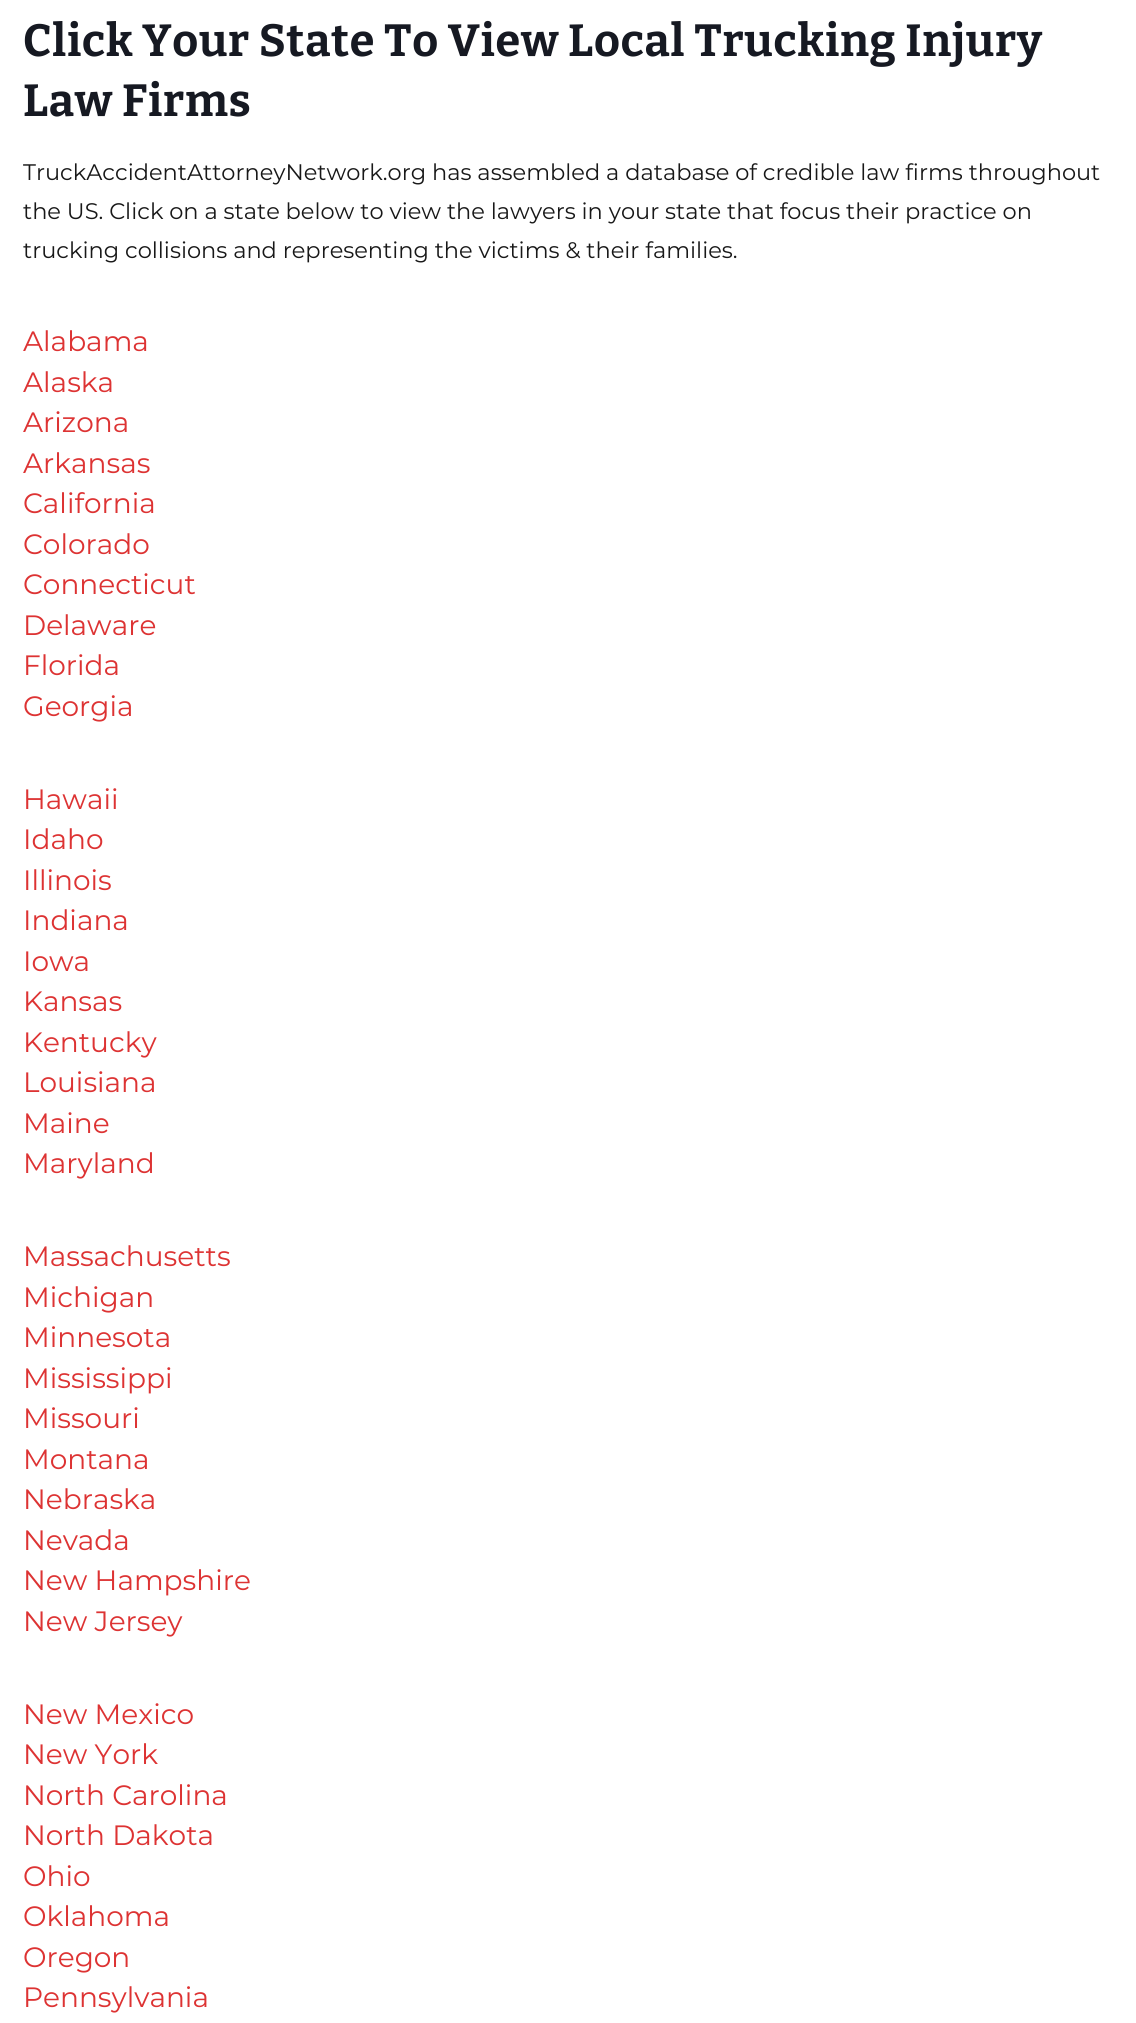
#include <cairo.h>
#include <math.h>
#include <stddef.h>


static void rgb(cairo_t *cr, int r, int g, int b)
{
	cairo_set_source_rgb(cr, r / 255.0, g / 255.0, b / 255.0);
}

static void face(cairo_t *cr, const char *family, double size, int italic, int bold)
{
	cairo_select_font_face(cr, family, italic ? CAIRO_FONT_SLANT_ITALIC : CAIRO_FONT_SLANT_NORMAL,
		bold ? CAIRO_FONT_WEIGHT_BOLD : CAIRO_FONT_WEIGHT_NORMAL);
	cairo_set_font_size(cr, size);
}

static void label(cairo_t *cr, double x, double y, const char *s)
{
	cairo_move_to(cr, x, y);
	cairo_show_text(cr, s);
}

static void tracked(cairo_t *cr, double x, double y, const char *s, double letter, double word)
{
	cairo_move_to(cr, x, y);
	while (*s) {
		char ch[5] = {0};
		int n = 0;
		do ch[n++] = *s++; while ((*s & 0xC0) == 0x80);
		cairo_show_text(cr, ch);
		cairo_rel_move_to(cr, letter + word * (*ch == ' '), 0);
	}
}

static void draw(cairo_t *cr) {
	rgb(cr, 255, 255, 255);
	cairo_paint(cr);
	face(cr, "Bitter", 45, 0, 1);
	rgb(cr, 22, 25, 34);
	tracked(cr, 23, 56, "Click Your State To View Local Trucking Injury", 0.75, 0);
	tracked(cr, 23, 116, "Law Firms", 0.75, 0);
	face(cr, "Montserrat", 22.5, 0, 0);
	rgb(cr, 24, 24, 24);
	label(cr, 23, 180, "TruckAccidentAttorneyNetwork.org has assembled a database of credible law firms throughout");
	label(cr, 23, 219, "the US. Click on a state below to view the lawyers in your state that focus their practice on");
	label(cr, 23, 258, "trucking collisions and representing the victims & their families.");
	face(cr, "Montserrat", 28, 0, 0);
	rgb(cr, 221, 51, 51);
	label(cr, 23, 351, "Alabama");
	label(cr, 23, 392, "Alaska");
	label(cr, 23, 432, "Arizona");
	label(cr, 23, 473, "Arkansas");
	label(cr, 23, 513, "California");
	label(cr, 23, 554, "Colorado");
	label(cr, 23, 594, "Connecticut");
	label(cr, 23, 635, "Delaware");
	label(cr, 23, 675, "Florida");
	label(cr, 23, 716, "Georgia");
	label(cr, 23, 809, "Hawaii");
	label(cr, 23, 849, "Idaho");
	label(cr, 23, 890, "Illinois");
	label(cr, 23, 930, "Indiana");
	label(cr, 23, 971, "Iowa");
	label(cr, 23, 1011, "Kansas");
	label(cr, 23, 1052, "Kentucky");
	label(cr, 23, 1092, "Louisiana");
	label(cr, 23, 1133, "Maine");
	label(cr, 23, 1173, "Maryland");
	label(cr, 23, 1266, "Massachusetts");
	label(cr, 23, 1307, "Michigan");
	label(cr, 23, 1347, "Minnesota");
	label(cr, 23, 1388, "Mississippi");
	label(cr, 23, 1428, "Missouri");
	label(cr, 23, 1469, "Montana");
	label(cr, 23, 1509, "Nebraska");
	label(cr, 23, 1550, "Nevada");
	label(cr, 23, 1590, "New Hampshire");
	label(cr, 23, 1631, "New Jersey");
	label(cr, 23, 1724, "New Mexico");
	label(cr, 23, 1764, "New York");
	label(cr, 23, 1805, "North Carolina");
	label(cr, 23, 1845, "North Dakota");
	label(cr, 23, 1886, "Ohio");
	label(cr, 23, 1926, "Oklahoma");
	label(cr, 23, 1967, "Oregon");
	label(cr, 23, 2007, "Pennsylvania");
}

int main(void) {
	cairo_surface_t *surface = cairo_image_surface_create(CAIRO_FORMAT_RGB24, 1136, 2023);
	cairo_t *cr = cairo_create(surface);
	cairo_font_options_t *options = cairo_font_options_create();
	cairo_font_options_set_hint_metrics(options, CAIRO_HINT_METRICS_OFF);
	cairo_font_options_set_hint_style(options, CAIRO_HINT_STYLE_NONE);
	cairo_set_font_options(cr, options);
	cairo_set_miter_limit(cr, 4);
	draw(cr);
	cairo_surface_write_to_png(surface, "render.png");
	cairo_font_options_destroy(options);
	cairo_destroy(cr);
	cairo_surface_destroy(surface);
	return 0;
}
